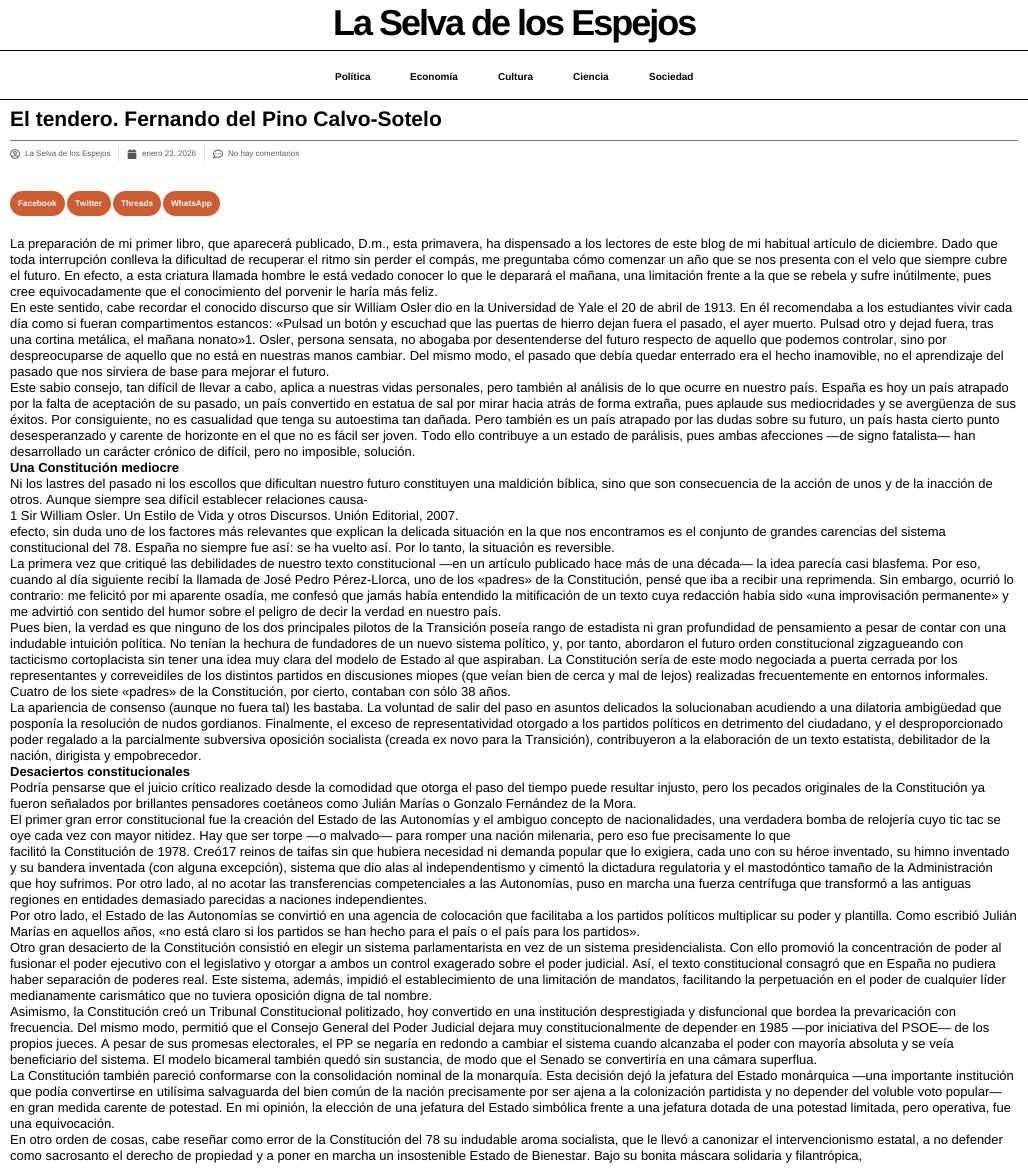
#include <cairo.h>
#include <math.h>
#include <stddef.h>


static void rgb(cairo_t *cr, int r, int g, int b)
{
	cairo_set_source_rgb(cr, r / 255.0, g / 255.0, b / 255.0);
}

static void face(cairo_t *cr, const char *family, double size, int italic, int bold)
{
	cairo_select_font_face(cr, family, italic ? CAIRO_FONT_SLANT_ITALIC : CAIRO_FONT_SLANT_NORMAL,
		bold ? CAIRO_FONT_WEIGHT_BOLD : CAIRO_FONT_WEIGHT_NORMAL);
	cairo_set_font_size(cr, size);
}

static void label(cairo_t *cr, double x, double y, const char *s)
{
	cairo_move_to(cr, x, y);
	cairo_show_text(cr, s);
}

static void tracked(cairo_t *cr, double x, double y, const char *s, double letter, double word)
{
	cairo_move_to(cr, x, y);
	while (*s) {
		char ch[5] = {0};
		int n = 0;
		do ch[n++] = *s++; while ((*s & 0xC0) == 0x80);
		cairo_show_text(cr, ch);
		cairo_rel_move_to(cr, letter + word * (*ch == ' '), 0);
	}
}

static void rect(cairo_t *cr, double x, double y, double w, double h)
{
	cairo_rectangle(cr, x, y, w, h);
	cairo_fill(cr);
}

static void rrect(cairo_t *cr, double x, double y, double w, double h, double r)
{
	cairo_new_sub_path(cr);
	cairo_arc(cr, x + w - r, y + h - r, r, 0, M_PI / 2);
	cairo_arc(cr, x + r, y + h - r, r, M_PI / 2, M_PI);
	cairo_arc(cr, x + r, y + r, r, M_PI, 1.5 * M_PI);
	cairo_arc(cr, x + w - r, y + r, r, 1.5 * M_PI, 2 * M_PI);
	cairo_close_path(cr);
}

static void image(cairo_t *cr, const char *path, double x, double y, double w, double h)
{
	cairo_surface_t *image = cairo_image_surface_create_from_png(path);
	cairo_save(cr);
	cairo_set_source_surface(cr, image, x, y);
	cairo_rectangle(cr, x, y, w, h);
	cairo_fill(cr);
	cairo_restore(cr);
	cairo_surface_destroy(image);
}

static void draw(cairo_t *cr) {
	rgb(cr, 255, 255, 255);
	cairo_paint(cr);
	face(cr, "Liberation Sans", 36, 0, 1);
	rgb(cr, 0, 0, 0);
	tracked(cr, 333, 35, "La Selva de los Espejos", -2, 0);
	rect(cr, 0, 50, 1028, 1);
	face(cr, "Liberation Sans", 10, 0, 1);
	label(cr, 335, 80, "Política");
	label(cr, 410, 80, "Economía");
	label(cr, 498, 80, "Cultura");
	label(cr, 573, 80, "Ciencia");
	label(cr, 649, 80, "Sociedad");
	rect(cr, 0, 99, 1028, 1);
	face(cr, "Liberation Sans", 21, 0, 1);
	label(cr, 10, 126, "El tendero. Fernando del Pino Calvo-Sotelo");
	rgb(cr, 122, 122, 122);
	rect(cr, 10, 140, 1008, 1);
	image(cr, "image0.png", 10, 149, 10, 10);
	face(cr, "Liberation Sans", 8, 0, 0);
	rgb(cr, 84, 89, 95);
	label(cr, 25, 156, "La Selva de los Espejos");
	rgb(cr, 221, 221, 221);
	rect(cr, 118, 146, 1, 15);
	image(cr, "image1.png", 127, 149, 10, 10);
	rgb(cr, 84, 89, 95);
	label(cr, 142, 156, "enero 23, 2026");
	rgb(cr, 221, 221, 221);
	rect(cr, 204, 146, 1, 15);
	image(cr, "image2.png", 213, 149, 10, 10);
	rgb(cr, 84, 89, 95);
	label(cr, 228, 156, "No hay comentarios");
	rgb(cr, 204, 92, 50);
	rrect(cr, 10, 191, 55, 25, 12.5);
	cairo_fill(cr);
	face(cr, "Liberation Sans", 8.25, 0, 1);
	rgb(cr, 255, 255, 255);
	label(cr, 18, 206, "Facebook");
	rgb(cr, 204, 92, 50);
	rrect(cr, 67, 191, 44, 25, 12.5);
	cairo_fill(cr);
	rgb(cr, 255, 255, 255);
	label(cr, 75, 206, "Twitter");
	rgb(cr, 204, 92, 50);
	rrect(cr, 113, 191, 48, 25, 12.5);
	cairo_fill(cr);
	rgb(cr, 255, 255, 255);
	label(cr, 121, 206, "Threads");
	rgb(cr, 204, 92, 50);
	rrect(cr, 163, 191, 57, 25, 12.5);
	cairo_fill(cr);
	rgb(cr, 255, 255, 255);
	label(cr, 171, 206, "WhatsApp");
	face(cr, "Liberation Sans", 13, 0, 0);
	rgb(cr, 0, 0, 0);
	label(cr, 10, 248, "La preparación de mi primer libro, que aparecerá publicado, D.m., esta primavera, ha dispensado a los lectores de este blog de mi habitual artículo de diciembre. Dado que");
	label(cr, 10, 264, "toda interrupción conlleva la dificultad de recuperar el ritmo sin perder el compás, me preguntaba cómo comenzar un año que se nos presenta con el velo que siempre cubre");
	label(cr, 10, 280, "el futuro. En efecto, a esta criatura llamada hombre le está vedado conocer lo que le deparará el mañana, una limitación frente a la que se rebela y sufre inútilmente, pues");
	label(cr, 10, 296, "cree equivocadamente que el conocimiento del porvenir le haría más feliz.");
	label(cr, 10, 312, "En este sentido, cabe recordar el conocido discurso que sir William Osler dio en la Universidad de Yale el 20 de abril de 1913. En él recomendaba a los estudiantes vivir cada");
	label(cr, 10, 328, "día como si fueran compartimentos estancos: «Pulsad un botón y escuchad que las puertas de hierro dejan fuera el pasado, el ayer muerto. Pulsad otro y dejad fuera, tras");
	label(cr, 10, 344, "una cortina metálica, el mañana nonato»1. Osler, persona sensata, no abogaba por desentenderse del futuro respecto de aquello que podemos controlar, sino por");
	label(cr, 10, 360, "despreocuparse de aquello que no está en nuestras manos cambiar. Del mismo modo, el pasado que debía quedar enterrado era el hecho inamovible, no el aprendizaje del");
	label(cr, 10, 376, "pasado que nos sirviera de base para mejorar el futuro.");
	label(cr, 10, 392, "Este sabio consejo, tan difícil de llevar a cabo, aplica a nuestras vidas personales, pero también al análisis de lo que ocurre en nuestro país. España es hoy un país atrapado");
	label(cr, 10, 408, "por la falta de aceptación de su pasado, un país convertido en estatua de sal por mirar hacia atrás de forma extraña, pues aplaude sus mediocridades y se avergüenza de sus");
	label(cr, 10, 424, "éxitos. Por consiguiente, no es casualidad que tenga su autoestima tan dañada. Pero también es un país atrapado por las dudas sobre su futuro, un país hasta cierto punto");
	label(cr, 10, 440, "desesperanzado y carente de horizonte en el que no es fácil ser joven. Todo ello contribuye a un estado de parálisis, pues ambas afecciones ―de signo fatalista― han");
	label(cr, 10, 456, "desarrollado un carácter crónico de difícil, pero no imposible, solución.");
	face(cr, "Liberation Sans", 13, 0, 1);
	label(cr, 10, 472, "Una Constitución mediocre");
	face(cr, "Liberation Sans", 13, 0, 0);
	label(cr, 10, 488, "Ni los lastres del pasado ni los escollos que dificultan nuestro futuro constituyen una maldición bíblica, sino que son consecuencia de la acción de unos y de la inacción de");
	label(cr, 10, 504, "otros. Aunque siempre sea difícil establecer relaciones causa-");
	label(cr, 10, 520, "1 Sir William Osler. Un Estilo de Vida y otros Discursos. Unión Editorial, 2007.");
	label(cr, 10, 536, "efecto, sin duda uno de los factores más relevantes que explican la delicada situación en la que nos encontramos es el conjunto de grandes carencias del sistema");
	label(cr, 10, 552, "constitucional del 78. España no siempre fue así: se ha vuelto así. Por lo tanto, la situación es reversible.");
	label(cr, 10, 568, "La primera vez que critiqué las debilidades de nuestro texto constitucional ―en un artículo publicado hace más de una década― la idea parecía casi blasfema. Por eso,");
	label(cr, 10, 584, "cuando al día siguiente recibí la llamada de José Pedro Pérez-Llorca, uno de los «padres» de la Constitución, pensé que iba a recibir una reprimenda. Sin embargo, ocurrió lo");
	label(cr, 10, 600, "contrario: me felicitó por mi aparente osadía, me confesó que jamás había entendido la mitificación de un texto cuya redacción había sido «una improvisación permanente» y");
	label(cr, 10, 616, "me advirtió con sentido del humor sobre el peligro de decir la verdad en nuestro país.");
	label(cr, 10, 632, "Pues bien, la verdad es que ninguno de los dos principales pilotos de la Transición poseía rango de estadista ni gran profundidad de pensamiento a pesar de contar con una");
	label(cr, 10, 648, "indudable intuición política. No tenían la hechura de fundadores de un nuevo sistema político, y, por tanto, abordaron el futuro orden constitucional zigzagueando con");
	label(cr, 10, 664, "tacticismo cortoplacista sin tener una idea muy clara del modelo de Estado al que aspiraban. La Constitución sería de este modo negociada a puerta cerrada por los");
	label(cr, 10, 680, "representantes y correveidiles de los distintos partidos en discusiones miopes (que veían bien de cerca y mal de lejos) realizadas frecuentemente en entornos informales.");
	label(cr, 10, 696, "Cuatro de los siete «padres» de la Constitución, por cierto, contaban con sólo 38 años.");
	label(cr, 10, 712, "La apariencia de consenso (aunque no fuera tal) les bastaba. La voluntad de salir del paso en asuntos delicados la solucionaban acudiendo a una dilatoria ambigüedad que");
	label(cr, 10, 728, "posponía la resolución de nudos gordianos. Finalmente, el exceso de representatividad otorgado a los partidos políticos en detrimento del ciudadano, y el desproporcionado");
	label(cr, 10, 744, "poder regalado a la parcialmente subversiva oposición socialista (creada ex novo para la Transición), contribuyeron a la elaboración de un texto estatista, debilitador de la");
	label(cr, 10, 760, "nación, dirigista y empobrecedor.");
	face(cr, "Liberation Sans", 13, 0, 1);
	label(cr, 10, 776, "Desaciertos constitucionales");
	face(cr, "Liberation Sans", 13, 0, 0);
	label(cr, 10, 792, "Podría pensarse que el juicio crítico realizado desde la comodidad que otorga el paso del tiempo puede resultar injusto, pero los pecados originales de la Constitución ya");
	label(cr, 10, 808, "fueron señalados por brillantes pensadores coetáneos como Julián Marías o Gonzalo Fernández de la Mora.");
	label(cr, 10, 824, "El primer gran error constitucional fue la creación del Estado de las Autonomías y el ambiguo concepto de nacionalidades, una verdadera bomba de relojería cuyo tic tac se");
	label(cr, 10, 840, "oye cada vez con mayor nitidez. Hay que ser torpe —o malvado— para romper una nación milenaria, pero eso fue precisamente lo que");
	label(cr, 10, 856, "facilitó la Constitución de 1978. Creó17 reinos de taifas sin que hubiera necesidad ni demanda popular que lo exigiera, cada uno con su héroe inventado, su himno inventado");
	label(cr, 10, 872, "y su bandera inventada (con alguna excepción), sistema que dio alas al independentismo y cimentó la dictadura regulatoria y el mastodóntico tamaño de la Administración");
	label(cr, 10, 888, "que hoy sufrimos. Por otro lado, al no acotar las transferencias competenciales a las Autonomías, puso en marcha una fuerza centrífuga que transformó a las antiguas");
	label(cr, 10, 904, "regiones en entidades demasiado parecidas a naciones independientes.");
	label(cr, 10, 920, "Por otro lado, el Estado de las Autonomías se convirtió en una agencia de colocación que facilitaba a los partidos políticos multiplicar su poder y plantilla. Como escribió Julián");
	label(cr, 10, 936, "Marías en aquellos años, «no está claro si los partidos se han hecho para el país o el país para los partidos».");
	label(cr, 10, 952, "Otro gran desacierto de la Constitución consistió en elegir un sistema parlamentarista en vez de un sistema presidencialista. Con ello promovió la concentración de poder al");
	label(cr, 10, 968, "fusionar el poder ejecutivo con el legislativo y otorgar a ambos un control exagerado sobre el poder judicial. Así, el texto constitucional consagró que en España no pudiera");
	label(cr, 10, 984, "haber separación de poderes real. Este sistema, además, impidió el establecimiento de una limitación de mandatos, facilitando la perpetuación en el poder de cualquier líder");
	label(cr, 10, 1000, "medianamente carismático que no tuviera oposición digna de tal nombre.");
	label(cr, 10, 1016, "Asimismo, la Constitución creó un Tribunal Constitucional politizado, hoy convertido en una institución desprestigiada y disfuncional que bordea la prevaricación con");
	label(cr, 10, 1032, "frecuencia. Del mismo modo, permitió que el Consejo General del Poder Judicial dejara muy constitucionalmente de depender en 1985 —por iniciativa del PSOE— de los");
	label(cr, 10, 1048, "propios jueces. A pesar de sus promesas electorales, el PP se negaría en redondo a cambiar el sistema cuando alcanzaba el poder con mayoría absoluta y se veía");
	label(cr, 10, 1064, "beneficiario del sistema. El modelo bicameral también quedó sin sustancia, de modo que el Senado se convertiría en una cámara superflua.");
	label(cr, 10, 1080, "La Constitución también pareció conformarse con la consolidación nominal de la monarquía. Esta decisión dejó la jefatura del Estado monárquica —una importante institución");
	label(cr, 10, 1096, "que podía convertirse en utilísima salvaguarda del bien común de la nación precisamente por ser ajena a la colonización partidista y no depender del voluble voto popular—");
	label(cr, 10, 1112, "en gran medida carente de potestad. En mi opinión, la elección de una jefatura del Estado simbólica frente a una jefatura dotada de una potestad limitada, pero operativa, fue");
	label(cr, 10, 1128, "una equivocación.");
	label(cr, 10, 1144, "En otro orden de cosas, cabe reseñar como error de la Constitución del 78 su indudable aroma socialista, que le llevó a canonizar el intervencionismo estatal, a no defender");
	label(cr, 10, 1160, "como sacrosanto el derecho de propiedad y a poner en marcha un insostenible Estado de Bienestar. Bajo su bonita máscara solidaria y filantrópica,");
}

int main(void) {
	cairo_surface_t *surface = cairo_image_surface_create(CAIRO_FORMAT_RGB24, 1028, 1171);
	cairo_t *cr = cairo_create(surface);
	cairo_font_options_t *options = cairo_font_options_create();
	cairo_font_options_set_hint_metrics(options, CAIRO_HINT_METRICS_OFF);
	cairo_font_options_set_hint_style(options, CAIRO_HINT_STYLE_NONE);
	cairo_set_font_options(cr, options);
	cairo_set_miter_limit(cr, 4);
	draw(cr);
	cairo_surface_write_to_png(surface, "render.png");
	cairo_font_options_destroy(options);
	cairo_destroy(cr);
	cairo_surface_destroy(surface);
	return 0;
}
